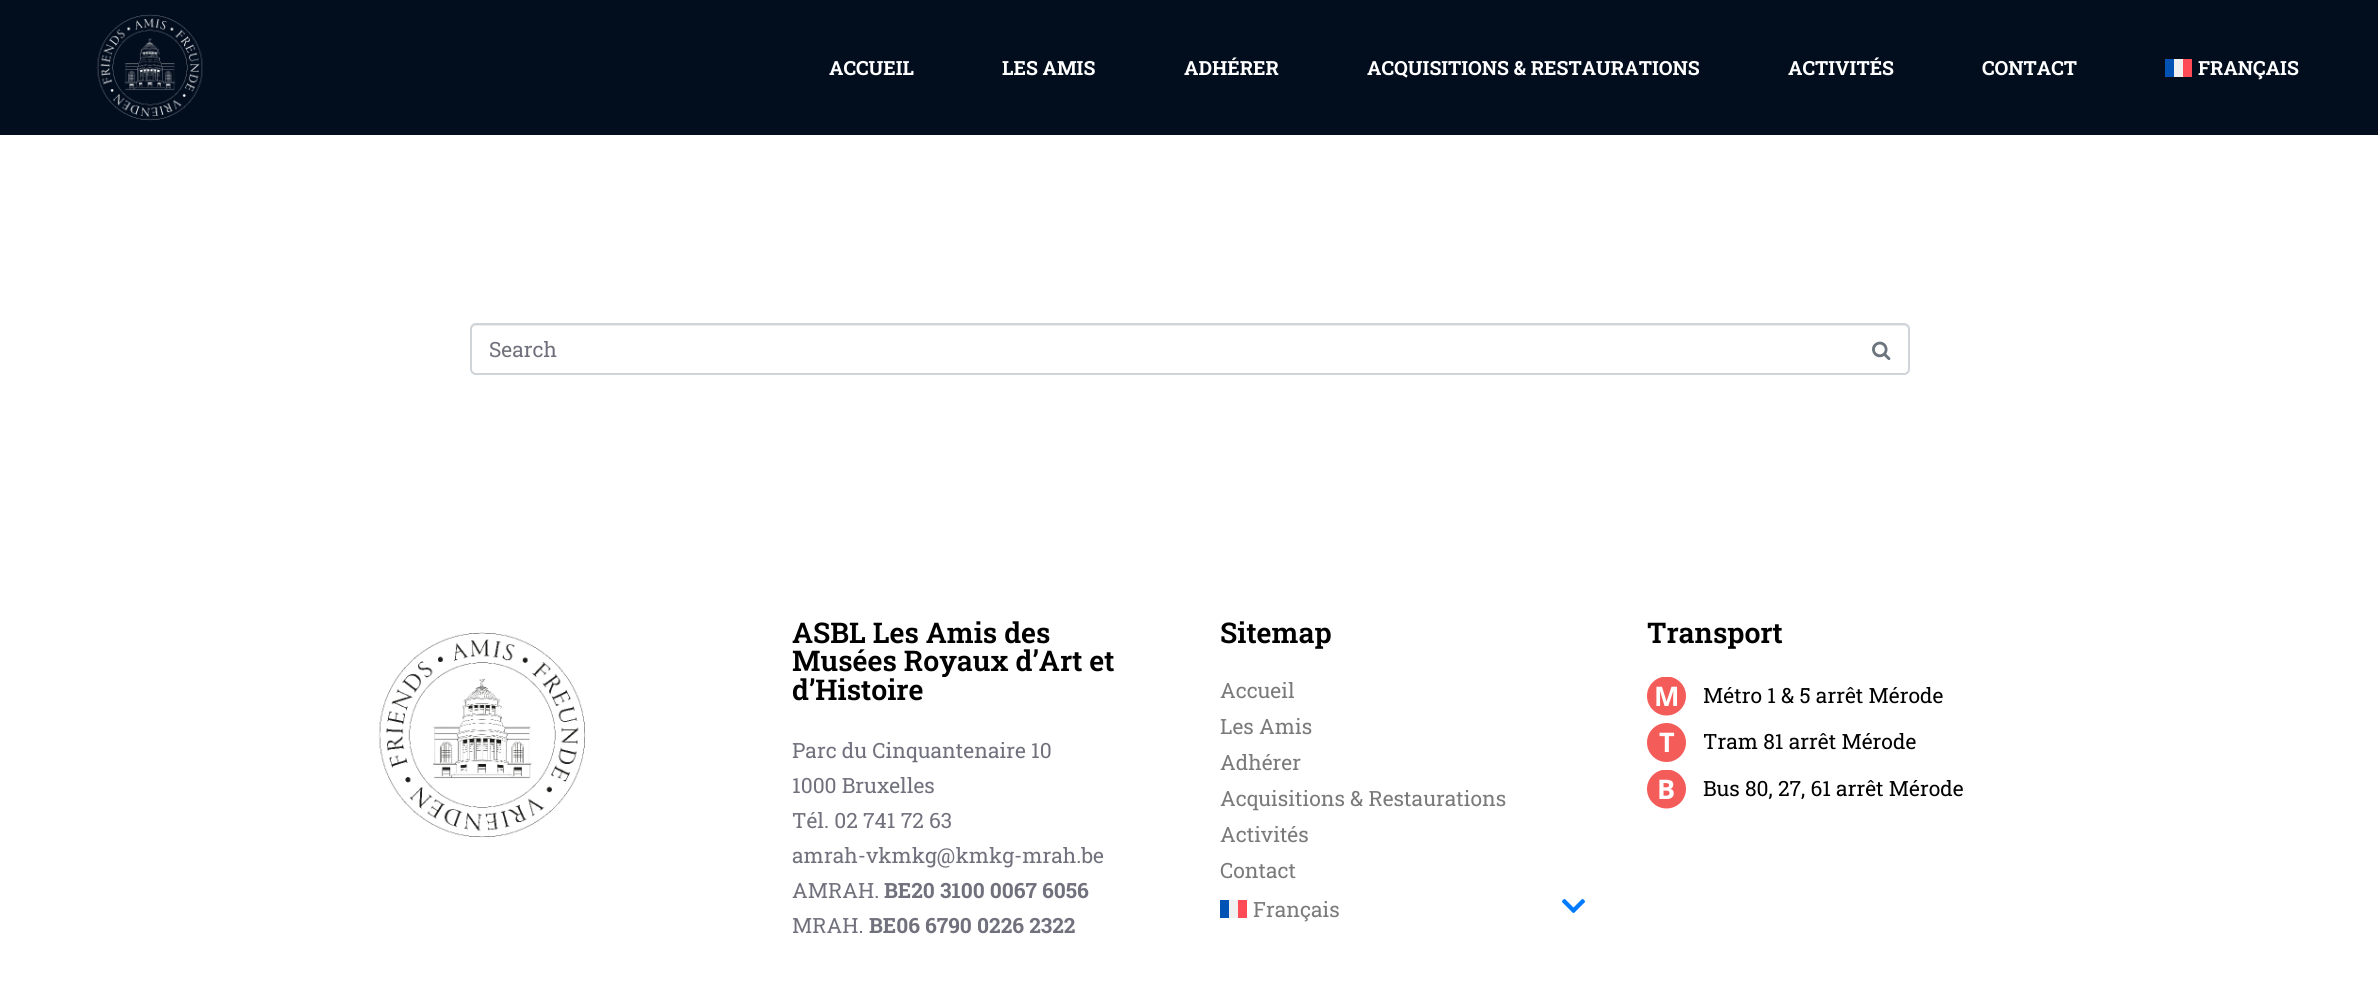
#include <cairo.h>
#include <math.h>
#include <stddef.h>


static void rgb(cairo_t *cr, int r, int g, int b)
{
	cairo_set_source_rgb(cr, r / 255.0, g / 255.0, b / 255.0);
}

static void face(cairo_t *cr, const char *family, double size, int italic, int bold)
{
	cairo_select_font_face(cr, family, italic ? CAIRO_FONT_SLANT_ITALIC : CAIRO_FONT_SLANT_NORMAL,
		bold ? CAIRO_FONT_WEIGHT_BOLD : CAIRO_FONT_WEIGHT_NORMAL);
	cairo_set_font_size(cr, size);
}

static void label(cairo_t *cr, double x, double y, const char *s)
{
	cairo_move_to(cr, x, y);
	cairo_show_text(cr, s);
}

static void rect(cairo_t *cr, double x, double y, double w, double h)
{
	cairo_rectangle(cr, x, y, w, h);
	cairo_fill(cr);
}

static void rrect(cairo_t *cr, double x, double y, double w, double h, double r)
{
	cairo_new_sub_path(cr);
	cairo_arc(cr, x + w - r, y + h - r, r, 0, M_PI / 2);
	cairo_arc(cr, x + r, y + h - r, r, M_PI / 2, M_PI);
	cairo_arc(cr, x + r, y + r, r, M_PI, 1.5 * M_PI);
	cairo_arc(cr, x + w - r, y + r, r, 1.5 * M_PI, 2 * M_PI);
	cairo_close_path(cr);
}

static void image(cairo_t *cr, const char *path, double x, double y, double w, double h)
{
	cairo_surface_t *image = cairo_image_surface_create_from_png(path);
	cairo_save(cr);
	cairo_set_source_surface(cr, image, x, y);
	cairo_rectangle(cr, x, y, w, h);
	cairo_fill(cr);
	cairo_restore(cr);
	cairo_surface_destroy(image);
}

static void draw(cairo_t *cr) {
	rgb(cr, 255, 255, 255);
	cairo_paint(cr);
	rgb(cr, 2, 13, 30);
	rect(cr, 0, 0, 2378, 135);
	image(cr, "image0.png", 96, 14, 107, 107);
	face(cr, "Roboto Slab", 19.5, 0, 1);
	rgb(cr, 255, 255, 255);
	label(cr, 829, 75, "ACCUEIL");
	label(cr, 1002, 75, "LES AMIS");
	label(cr, 1184, 75, "ADHÉRER");
	label(cr, 1367, 75, "ACQUISITIONS & RESTAURATIONS");
	label(cr, 1788, 75, "ACTIVITÉS");
	label(cr, 1982, 75, "CONTACT");
	rgb(cr, 240, 240, 240);
	rect(cr, 2174, 59, 9, 18);
	rgb(cr, 255, 75, 85);
	rect(cr, 2183, 59, 9, 18);
	rgb(cr, 0, 82, 180);
	rect(cr, 2165, 59, 9, 18);
	rgb(cr, 255, 255, 255);
	label(cr, 2198, 75, "FRANÇAIS");
	rgb(cr, 236, 236, 236);
	cairo_new_path(cr);
	cairo_move_to(cr, 476, 326);
	cairo_line_to(cr, 1904, 326);
	cairo_curve_to(cr, 1906, 326, 1908, 328, 1908, 330);
	cairo_curve_to(cr, 1908, 327, 1906, 324, 1903, 324);
	cairo_line_to(cr, 476, 324);
	cairo_curve_to(cr, 473, 324, 471, 327, 471, 330);
	cairo_curve_to(cr, 471, 328, 473, 326, 476, 326);
	cairo_close_path(cr);
	cairo_fill(cr);
	rrect(cr, 471, 324, 1438, 50, 5);
	rgb(cr, 206, 212, 218);
	cairo_stroke(cr);
	face(cr, "Roboto Slab", 21, 0, 0);
	rgb(cr, 113, 113, 125);
	label(cr, 489, 357, "Search");
	image(cr, "image1.png", 1872, 341, 19, 20);
	image(cr, "image2.png", 378, 632, 208, 206);
	face(cr, "Roboto Slab SemiBold", 28.5, 0, 0);
	rgb(cr, 0, 0, 0);
	label(cr, 792, 643, "ASBL Les Amis des");
	label(cr, 792, 671, "Musées Royaux d’Art et");
	label(cr, 792, 700, "d’Histoire");
	face(cr, "Roboto Slab", 21, 0, 0);
	rgb(cr, 113, 113, 125);
	label(cr, 792, 758, "Parc du Cinquantenaire 10");
	label(cr, 792, 793, "1000 Bruxelles");
	label(cr, 792, 828, "Tél. 02 741 72 63");
	label(cr, 792, 863, "amrah-vkmkg@kmkg-mrah.be");
	label(cr, 792, 898, "AMRAH.");
	face(cr, "Roboto Slab", 21, 0, 1);
	label(cr, 884, 898, "BE20 3100 0067 6056");
	face(cr, "Roboto Slab", 21, 0, 0);
	label(cr, 792, 933, "MRAH.");
	face(cr, "Roboto Slab", 21, 0, 1);
	label(cr, 869, 933, "BE06 6790 0226 2322");
	face(cr, "Roboto Slab SemiBold", 28.5, 0, 0);
	rgb(cr, 0, 0, 0);
	label(cr, 1220, 643, "Sitemap");
	face(cr, "Roboto Slab", 21, 0, 0);
	rgb(cr, 122, 122, 122);
	label(cr, 1220, 698, "Accueil");
	label(cr, 1220, 734, "Les Amis");
	label(cr, 1220, 770, "Adhérer");
	label(cr, 1220, 806, "Acquisitions & Restaurations");
	label(cr, 1220, 842, "Activités");
	label(cr, 1220, 878, "Contact");
	rgb(cr, 240, 240, 240);
	rect(cr, 1229, 900, 9, 18);
	rgb(cr, 255, 75, 85);
	rect(cr, 1238, 900, 9, 18);
	rgb(cr, 0, 82, 180);
	rect(cr, 1220, 900, 9, 18);
	rgb(cr, 122, 122, 122);
	label(cr, 1253, 917, "Français");
	image(cr, "image3.png", 1562, 899, 23, 14);
	face(cr, "Roboto Slab SemiBold", 28.5, 0, 0);
	rgb(cr, 0, 0, 0);
	label(cr, 1647, 643, "Transport");
	cairo_save(cr);
	cairo_rectangle(cr, 1647, 677, 39, 39);
	cairo_clip(cr);
	rgb(cr, 244, 92, 90);
	cairo_arc(cr, 1666.5, 696, 19.5, 0, 2 * M_PI);
	cairo_fill(cr);
	cairo_restore(cr);
	face(cr, "Open Sans", 27, 0, 1);
	rgb(cr, 255, 255, 255);
	label(cr, 1654, 706, "M");
	face(cr, "Roboto Slab", 21, 0, 0);
	rgb(cr, 0, 0, 0);
	label(cr, 1703, 703, "Métro 1 & 5 arrêt Mérode");
	rgb(cr, 244, 92, 90);
	cairo_new_path(cr);
	cairo_arc(cr, 1666.5, 742.5, 19.5, 0, 2 * M_PI);
	cairo_fill(cr);
	face(cr, "Open Sans", 27, 0, 1);
	rgb(cr, 255, 255, 255);
	label(cr, 1659, 752, "T");
	face(cr, "Roboto Slab", 21, 0, 0);
	rgb(cr, 0, 0, 0);
	label(cr, 1703, 749, "Tram 81 arrêt Mérode");
	cairo_save(cr);
	cairo_rectangle(cr, 1647, 770, 39, 39);
	cairo_clip(cr);
	rgb(cr, 244, 92, 90);
	cairo_arc(cr, 1666.5, 789, 19.5, 0, 2 * M_PI);
	cairo_fill(cr);
	cairo_restore(cr);
	face(cr, "Open Sans", 27, 0, 1);
	rgb(cr, 255, 255, 255);
	label(cr, 1657, 799, "B");
	face(cr, "Roboto Slab", 21, 0, 0);
	rgb(cr, 0, 0, 0);
	label(cr, 1703, 796, "Bus 80, 27, 61 arrêt Mérode");
}

int main(void) {
	cairo_surface_t *surface = cairo_image_surface_create(CAIRO_FORMAT_RGB24, 2378, 1008);
	cairo_t *cr = cairo_create(surface);
	cairo_font_options_t *options = cairo_font_options_create();
	cairo_font_options_set_hint_metrics(options, CAIRO_HINT_METRICS_OFF);
	cairo_font_options_set_hint_style(options, CAIRO_HINT_STYLE_NONE);
	cairo_set_font_options(cr, options);
	cairo_set_miter_limit(cr, 4);
	draw(cr);
	cairo_surface_write_to_png(surface, "render.png");
	cairo_font_options_destroy(options);
	cairo_destroy(cr);
	cairo_surface_destroy(surface);
	return 0;
}
